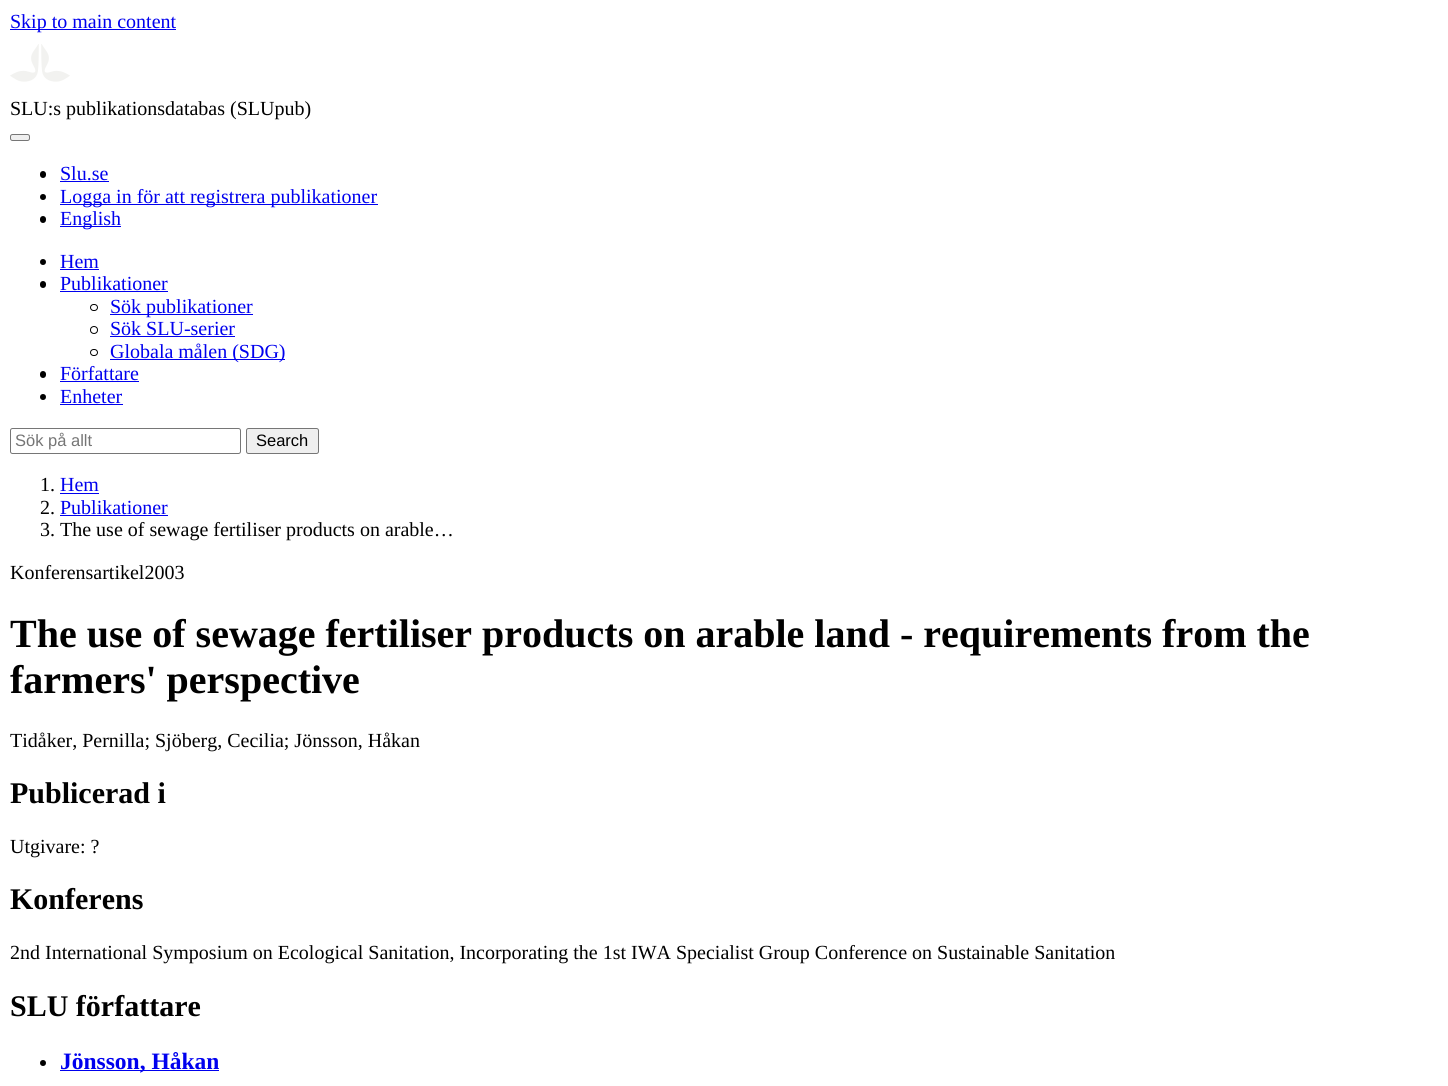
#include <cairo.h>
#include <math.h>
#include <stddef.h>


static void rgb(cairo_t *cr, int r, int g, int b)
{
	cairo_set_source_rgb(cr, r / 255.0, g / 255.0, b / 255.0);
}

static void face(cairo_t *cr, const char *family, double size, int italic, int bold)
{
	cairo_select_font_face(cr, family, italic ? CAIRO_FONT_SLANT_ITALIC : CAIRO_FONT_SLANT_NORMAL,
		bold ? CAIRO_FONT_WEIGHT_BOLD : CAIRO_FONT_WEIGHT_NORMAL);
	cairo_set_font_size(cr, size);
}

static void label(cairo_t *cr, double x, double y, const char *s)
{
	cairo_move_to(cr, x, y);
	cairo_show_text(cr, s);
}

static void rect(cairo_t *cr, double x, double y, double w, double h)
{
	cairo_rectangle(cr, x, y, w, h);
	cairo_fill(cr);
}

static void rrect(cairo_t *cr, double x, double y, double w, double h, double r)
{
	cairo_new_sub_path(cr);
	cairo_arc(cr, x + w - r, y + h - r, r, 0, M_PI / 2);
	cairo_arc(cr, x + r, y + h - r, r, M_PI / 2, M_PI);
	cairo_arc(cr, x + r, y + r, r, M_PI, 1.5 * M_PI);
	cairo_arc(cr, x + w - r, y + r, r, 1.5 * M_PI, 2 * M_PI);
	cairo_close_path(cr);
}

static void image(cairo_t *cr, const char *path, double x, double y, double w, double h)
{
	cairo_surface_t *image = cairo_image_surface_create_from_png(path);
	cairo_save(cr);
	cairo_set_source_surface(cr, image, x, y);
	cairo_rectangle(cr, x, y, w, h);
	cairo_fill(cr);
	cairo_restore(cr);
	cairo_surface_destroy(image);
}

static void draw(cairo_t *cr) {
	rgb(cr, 255, 255, 255);
	cairo_paint(cr);
	rgb(cr, 0, 0, 238);
	rect(cr, 10, 29, 166, 1);
	face(cr, "Liberation Serif", 20, 0, 0);
	label(cr, 10, 28, "Skip to main content");
	image(cr, "image0.png", 10, 44, 60, 38);
	rgb(cr, 0, 0, 0);
	label(cr, 10, 115, "SLU:s publikationsdatabas (SLUpub)");
	rgb(cr, 239, 239, 239);
	rrect(cr, 10.5, 134.5, 19, 6, 2);
	cairo_fill_preserve(cr);
	rgb(cr, 118, 118, 118);
	cairo_set_line_width(cr, 1);
	cairo_stroke(cr);
	rgb(cr, 0, 0, 0);
	rrect(cr, 40, 171, 6, 7, 3);
	cairo_fill(cr);
	rgb(cr, 0, 0, 238);
	label(cr, 60, 180, "Slu.se");
	rect(cr, 60, 181, 49, 1);
	rgb(cr, 0, 0, 0);
	cairo_new_path(cr);
	cairo_arc(cr, 43, 197, 3, 0, 2 * M_PI);
	cairo_fill(cr);
	rgb(cr, 0, 0, 238);
	rect(cr, 60, 204, 318, 1);
	label(cr, 60, 203, "Logga in för att registrera publikationer");
	rgb(cr, 0, 0, 0);
	rrect(cr, 40, 216, 6, 7, 3);
	cairo_fill(cr);
	rgb(cr, 0, 0, 238);
	rect(cr, 60, 226, 61, 1);
	label(cr, 60, 225, "English");
	rgb(cr, 0, 0, 0);
	cairo_new_path(cr);
	cairo_arc(cr, 43, 262, 3, 0, 2 * M_PI);
	cairo_fill(cr);
	rgb(cr, 0, 0, 238);
	label(cr, 60, 268, "Hem");
	rect(cr, 60, 269, 39, 1);
	rgb(cr, 0, 0, 0);
	rrect(cr, 40, 281, 6, 7, 3);
	cairo_fill(cr);
	rgb(cr, 0, 0, 238);
	label(cr, 60, 290, "Publikationer");
	rect(cr, 60, 291, 108, 1);
	rrect(cr, 90.5, 304.5, 7, 6, 3);
	rgb(cr, 0, 0, 0);
	cairo_stroke(cr);
	rgb(cr, 0, 0, 238);
	rect(cr, 110, 314, 143, 1);
	label(cr, 110, 313, "Sök publikationer");
	cairo_new_path(cr);
	cairo_arc(cr, 94, 330, 3.5, 0, 2 * M_PI);
	rgb(cr, 0, 0, 0);
	cairo_stroke(cr);
	rgb(cr, 0, 0, 238);
	label(cr, 110, 335, "Sök SLU-serier");
	rect(cr, 110, 336, 125, 1);
	rrect(cr, 90.5, 349.5, 7, 6, 3);
	rgb(cr, 0, 0, 0);
	cairo_stroke(cr);
	rgb(cr, 0, 0, 238);
	rect(cr, 110, 359, 175, 1);
	label(cr, 110, 358, "Globala målen (SDG)");
	rgb(cr, 0, 0, 0);
	rrect(cr, 40, 371, 6, 7, 3);
	cairo_fill(cr);
	rgb(cr, 0, 0, 238);
	label(cr, 60, 380, "Författare");
	rect(cr, 60, 381, 79, 1);
	rgb(cr, 0, 0, 0);
	cairo_new_path(cr);
	cairo_arc(cr, 43, 397, 3, 0, 2 * M_PI);
	cairo_fill(cr);
	rgb(cr, 0, 0, 238);
	label(cr, 60, 403, "Enheter");
	rect(cr, 60, 404, 63, 1);
	rrect(cr, 10.5, 428.5, 230, 25, 2);
	rgb(cr, 118, 118, 118);
	cairo_stroke(cr);
	face(cr, "Liberation Sans", 16.5, 0, 0);
	rgb(cr, 117, 117, 117);
	label(cr, 15, 446, "Sök på allt");
	rgb(cr, 239, 239, 239);
	rrect(cr, 246.5, 428.5, 72, 25, 2);
	cairo_fill_preserve(cr);
	rgb(cr, 118, 118, 118);
	cairo_stroke(cr);
	rgb(cr, 0, 0, 0);
	label(cr, 256, 446, "Search");
	face(cr, "Liberation Serif", 20, 0, 0);
	label(cr, 40, 491, "1.");
	rgb(cr, 0, 0, 238);
	label(cr, 60, 491, "Hem");
	rect(cr, 60, 493, 39, 1);
	rgb(cr, 0, 0, 0);
	label(cr, 40, 514, "2.");
	rgb(cr, 0, 0, 238);
	label(cr, 60, 514, "Publikationer");
	rect(cr, 60, 515, 108, 1);
	rgb(cr, 0, 0, 0);
	label(cr, 40, 536, "3. The use of sewage fertiliser products on arable…");
	label(cr, 10, 579, "Konferensartikel2003");
	face(cr, "Liberation Serif", 40, 0, 1);
	label(cr, 10, 647, "The use of sewage fertiliser products on arable land - requirements from the");
	label(cr, 10, 693, "farmers' perspective");
	face(cr, "Liberation Serif", 20, 0, 0);
	label(cr, 10, 747, "Tidåker, Pernilla; Sjöberg, Cecilia; Jönsson, Håkan");
	face(cr, "Liberation Serif", 30, 0, 1);
	label(cr, 10, 803, "Publicerad i");
	face(cr, "Liberation Serif", 20, 0, 0);
	label(cr, 10, 853, "Utgivare: ?");
	face(cr, "Liberation Serif", 30, 0, 1);
	label(cr, 10, 909, "Konferens");
	face(cr, "Liberation Serif", 20, 0, 0);
	label(cr, 10, 959, "2nd International Symposium on Ecological Sanitation, Incorporating the 1st IWA Specialist Group Conference on Sustainable Sanitation");
	face(cr, "Liberation Serif", 30, 0, 1);
	label(cr, 10, 1016, "SLU författare");
	cairo_new_path(cr);
	cairo_arc(cr, 43, 1063, 3, 0, 2 * M_PI);
	cairo_fill(cr);
	rgb(cr, 0, 0, 238);
	rect(cr, 60, 1070, 159, 1);
	face(cr, "Liberation Serif", 23.5, 0, 1);
	label(cr, 60, 1069, "Jönsson, Håkan");
}

int main(void) {
	cairo_surface_t *surface = cairo_image_surface_create(CAIRO_FORMAT_RGB24, 1448, 1086);
	cairo_t *cr = cairo_create(surface);
	cairo_font_options_t *options = cairo_font_options_create();
	cairo_font_options_set_hint_metrics(options, CAIRO_HINT_METRICS_OFF);
	cairo_font_options_set_hint_style(options, CAIRO_HINT_STYLE_NONE);
	cairo_set_font_options(cr, options);
	cairo_set_miter_limit(cr, 4);
	draw(cr);
	cairo_surface_write_to_png(surface, "render.png");
	cairo_font_options_destroy(options);
	cairo_destroy(cr);
	cairo_surface_destroy(surface);
	return 0;
}
